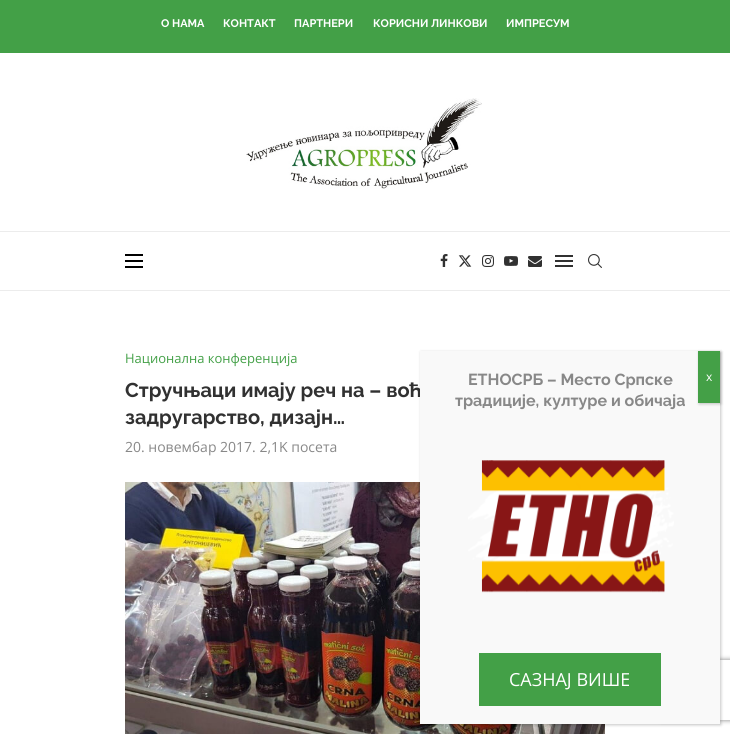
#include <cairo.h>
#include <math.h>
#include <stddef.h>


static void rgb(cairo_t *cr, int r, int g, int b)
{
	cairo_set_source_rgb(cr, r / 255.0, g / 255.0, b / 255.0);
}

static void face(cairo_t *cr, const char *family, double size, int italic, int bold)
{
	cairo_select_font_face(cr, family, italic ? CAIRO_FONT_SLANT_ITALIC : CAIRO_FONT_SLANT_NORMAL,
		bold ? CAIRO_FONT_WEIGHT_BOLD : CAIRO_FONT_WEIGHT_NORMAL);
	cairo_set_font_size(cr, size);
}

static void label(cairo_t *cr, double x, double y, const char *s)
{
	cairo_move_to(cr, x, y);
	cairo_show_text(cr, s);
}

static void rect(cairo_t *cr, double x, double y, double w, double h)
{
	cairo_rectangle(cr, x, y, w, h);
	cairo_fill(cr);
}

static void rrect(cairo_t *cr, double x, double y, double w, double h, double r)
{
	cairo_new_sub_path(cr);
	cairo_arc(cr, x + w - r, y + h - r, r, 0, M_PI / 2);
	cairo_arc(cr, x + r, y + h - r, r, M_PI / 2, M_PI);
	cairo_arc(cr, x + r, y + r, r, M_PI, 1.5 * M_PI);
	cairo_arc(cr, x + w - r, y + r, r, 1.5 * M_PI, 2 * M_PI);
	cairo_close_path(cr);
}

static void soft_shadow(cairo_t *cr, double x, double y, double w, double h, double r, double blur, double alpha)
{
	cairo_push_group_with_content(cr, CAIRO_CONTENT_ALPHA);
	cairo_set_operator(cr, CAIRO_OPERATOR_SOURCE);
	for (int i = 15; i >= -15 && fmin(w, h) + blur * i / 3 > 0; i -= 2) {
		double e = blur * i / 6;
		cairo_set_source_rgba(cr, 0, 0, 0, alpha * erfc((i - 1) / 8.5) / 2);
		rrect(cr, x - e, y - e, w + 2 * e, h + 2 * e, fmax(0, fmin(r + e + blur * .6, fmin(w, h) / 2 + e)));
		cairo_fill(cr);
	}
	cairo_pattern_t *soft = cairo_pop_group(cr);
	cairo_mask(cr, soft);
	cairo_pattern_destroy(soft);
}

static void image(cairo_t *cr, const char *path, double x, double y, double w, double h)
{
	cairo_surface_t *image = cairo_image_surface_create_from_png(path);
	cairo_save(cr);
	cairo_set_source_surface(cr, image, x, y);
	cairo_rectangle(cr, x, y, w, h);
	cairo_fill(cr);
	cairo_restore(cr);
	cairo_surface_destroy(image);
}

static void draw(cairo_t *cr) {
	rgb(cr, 255, 255, 255);
	cairo_paint(cr);
	rgb(cr, 67, 160, 71);
	rect(cr, 0, 0, 730, 53);
	face(cr, "Raleway", 11, 0, 1);
	rgb(cr, 255, 255, 255);
	label(cr, 161, 27, "О НАМА");
	label(cr, 223, 27, "КОНТАКТ");
	label(cr, 294, 27, "ПАРТНЕРИ");
	label(cr, 373, 27, "КОРИСНИ ЛИНКОВИ");
	label(cr, 506, 27, "ИМПРЕСУМ");
	image(cr, "image0.png", 246, 98, 236, 91);
	rgb(cr, 236, 236, 236);
	rect(cr, 0, 231, 730, 1);
	rect(cr, 0, 290, 730, 1);
	rgb(cr, 0, 0, 0);
	rect(cr, 125, 254, 18, 2);
	rect(cr, 125, 260, 18, 2);
	rect(cr, 125, 266, 18, 2);
	image(cr, "image1.png", 440, 254, 8, 13);
	image(cr, "image2.png", 458, 255, 14, 12);
	image(cr, "image3.png", 482, 255, 12, 12);
	image(cr, "image4.png", 504, 256, 14, 10);
	image(cr, "image5.png", 528, 256, 14, 11);
	rgb(cr, 49, 49, 49);
	rect(cr, 555, 255, 18, 2);
	rect(cr, 555, 265, 18, 2);
	rect(cr, 555, 260, 18, 2);
	image(cr, "image6.png", 588, 254, 14, 14);
	face(cr, "Open Sans", 13, 0, 0);
	rgb(cr, 67, 160, 71);
	label(cr, 125, 363, "Национална конференција");
	face(cr, "Raleway", 20, 0, 1);
	rgb(cr, 49, 49, 49);
	label(cr, 125, 397, "Стручњаци имају реч на – воћ");
	label(cr, 125, 424, "задругарство, дизајн…");
	face(cr, "Open Sans", 14, 0, 0);
	rgb(cr, 136, 136, 136);
	label(cr, 125, 452, "20. новембар 2017. 2,1K посета");
	image(cr, "image7.png", 125, 482, 480, 252);
	rgb(cr, 2, 2, 2);
	soft_shadow(cr, 421, 352, 300, 373, 0, 1.5, 0.23);
	cairo_save(cr);
	cairo_set_fill_rule(cr, CAIRO_FILL_RULE_EVEN_ODD);
	cairo_new_path(cr);
	cairo_move_to(cr, 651, 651);
	cairo_line_to(cr, 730, 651);
	cairo_line_to(cr, 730, 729);
	cairo_line_to(cr, 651, 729);
	cairo_close_path(cr);
	cairo_move_to(cr, 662, 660);
	cairo_line_to(cr, 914, 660);
	cairo_curve_to(cr, 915, 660, 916, 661, 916, 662);
	cairo_line_to(cr, 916, 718);
	cairo_curve_to(cr, 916, 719, 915, 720, 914, 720);
	cairo_line_to(cr, 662, 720);
	cairo_curve_to(cr, 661, 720, 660, 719, 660, 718);
	cairo_line_to(cr, 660, 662);
	cairo_curve_to(cr, 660, 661, 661, 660, 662, 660);
	cairo_close_path(cr);
	cairo_clip(cr);
	rgb(cr, 128, 128, 128);
	soft_shadow(cr, 660, 660, 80, 60, 2, 2.5, 1);
	cairo_restore(cr);
	rgb(cr, 249, 249, 249);
	rect(cr, 420, 351, 300, 373);
	face(cr, "Raleway", 16, 0, 1);
	rgb(cr, 136, 136, 136);
	label(cr, 468, 385, "ЕТНОСРБ – Место Српске");
	label(cr, 455, 406, "традиције, културе и обичаја");
	image(cr, "image8.png", 468, 460, 206, 133);
	rgb(cr, 67, 160, 71);
	rect(cr, 479, 653, 182, 53);
	face(cr, "Open Sans", 18, 0, 0);
	rgb(cr, 255, 255, 255);
	label(cr, 509, 686, "САЗНАЈ ВИШЕ");
	rgb(cr, 2, 2, 2);
	soft_shadow(cr, 699, 352, 22, 52, 0, 1.5, 0.23);
	rgb(cr, 68, 160, 71);
	rect(cr, 698, 351, 22, 52);
	face(cr, "Open Sans", 12, 0, 0);
	rgb(cr, 255, 255, 255);
	label(cr, 706, 381, "x");
}

int main(void) {
	cairo_surface_t *surface = cairo_image_surface_create(CAIRO_FORMAT_RGB24, 730, 734);
	cairo_t *cr = cairo_create(surface);
	cairo_font_options_t *options = cairo_font_options_create();
	cairo_font_options_set_hint_metrics(options, CAIRO_HINT_METRICS_OFF);
	cairo_font_options_set_hint_style(options, CAIRO_HINT_STYLE_NONE);
	cairo_set_font_options(cr, options);
	cairo_set_miter_limit(cr, 4);
	draw(cr);
	cairo_surface_write_to_png(surface, "render.png");
	cairo_font_options_destroy(options);
	cairo_destroy(cr);
	cairo_surface_destroy(surface);
	return 0;
}
